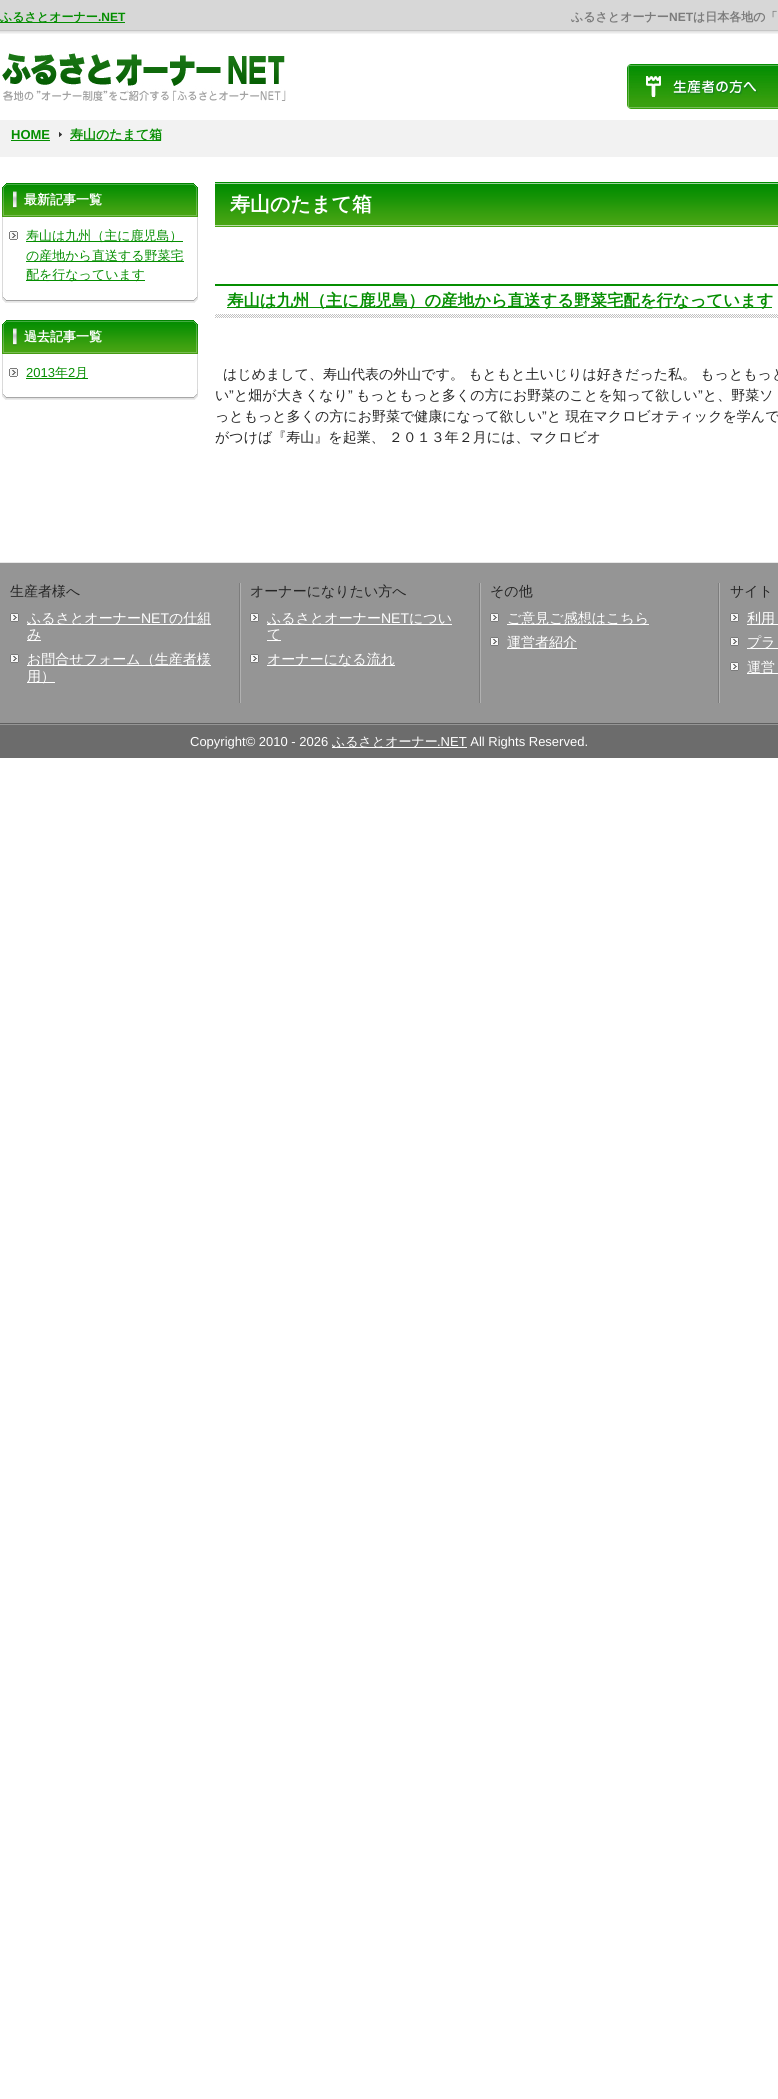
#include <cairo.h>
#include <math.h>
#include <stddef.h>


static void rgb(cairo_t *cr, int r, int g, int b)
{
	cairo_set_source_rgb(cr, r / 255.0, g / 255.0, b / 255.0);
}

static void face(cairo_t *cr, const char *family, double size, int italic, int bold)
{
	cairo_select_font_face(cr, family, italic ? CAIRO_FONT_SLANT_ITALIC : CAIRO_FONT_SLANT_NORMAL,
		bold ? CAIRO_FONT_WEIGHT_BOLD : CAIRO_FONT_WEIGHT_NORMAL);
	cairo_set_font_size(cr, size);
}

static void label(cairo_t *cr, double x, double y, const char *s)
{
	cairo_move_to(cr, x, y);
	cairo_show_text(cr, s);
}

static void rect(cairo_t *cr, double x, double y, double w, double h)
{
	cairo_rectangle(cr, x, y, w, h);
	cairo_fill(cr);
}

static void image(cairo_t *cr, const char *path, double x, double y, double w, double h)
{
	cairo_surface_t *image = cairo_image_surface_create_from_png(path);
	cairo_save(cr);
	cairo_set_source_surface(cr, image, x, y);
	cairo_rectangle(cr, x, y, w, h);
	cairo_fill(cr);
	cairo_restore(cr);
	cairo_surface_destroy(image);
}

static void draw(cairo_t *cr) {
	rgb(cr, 255, 255, 255);
	cairo_paint(cr);
	image(cr, "image0.png", 0, 0, 778, 34);
	rgb(cr, 5, 142, 1);
	rect(cr, 0, 22, 125, 1);
	face(cr, "WenQuanYi Zen Hei", 12, 0, 1);
	label(cr, 0, 21, "ふるさとオーナー");
	face(cr, "Liberation Sans", 12, 0, 1);
	label(cr, 98, 21, ".NET");
	face(cr, "WenQuanYi Zen Hei", 12, 0, 1);
	rgb(cr, 123, 123, 123);
	label(cr, 571, 21, "ふるさとオーナー");
	face(cr, "Liberation Sans", 12, 0, 1);
	label(cr, 669, 21, "NET");
	face(cr, "WenQuanYi Zen Hei", 12, 0, 1);
	label(cr, 693, 21, "は日本各地の「");
	image(cr, "image1.png", 2, 53, 284, 48);
	image(cr, "image2.png", 627, 64, 151, 45);
	rgb(cr, 242, 242, 242);
	rect(cr, 0, 120, 778, 37);
	face(cr, "Liberation Sans", 13, 0, 1);
	rgb(cr, 5, 142, 1);
	label(cr, 11, 139, "HOME");
	rect(cr, 11, 140, 39, 1);
	image(cr, "image3.png", 59, 132, 3, 5);
	rect(cr, 70, 140, 91, 1);
	face(cr, "WenQuanYi Zen Hei", 13, 0, 1);
	label(cr, 70, 139, "寿山のたまて箱");
	image(cr, "image4.png", 2, 217, 196, 86);
	image(cr, "image5.png", 2, 181, 196, 36);
	rgb(cr, 255, 255, 255);
	label(cr, 24, 204, "最新記事一覧");
	image(cr, "image6.png", 9, 231, 9, 9);
	rgb(cr, 5, 142, 1);
	rect(cr, 26, 241, 157, 1);
	face(cr, "WenQuanYi Zen Hei Medium", 13, 0, 0);
	label(cr, 26, 240, "寿山は九州（主に鹿児島）");
	rect(cr, 26, 261, 158, 1);
	label(cr, 26, 260, "の産地から直送する野菜宅");
	rect(cr, 26, 280, 119, 1);
	label(cr, 26, 279, "配を行なっています");
	image(cr, "image7.png", 2, 354, 196, 46);
	image(cr, "image5.png", 2, 318, 196, 36);
	face(cr, "WenQuanYi Zen Hei", 13, 0, 1);
	rgb(cr, 255, 255, 255);
	label(cr, 24, 341, "過去記事一覧");
	image(cr, "image6.png", 9, 368, 9, 9);
	face(cr, "Liberation Sans", 13, 0, 0);
	rgb(cr, 5, 142, 1);
	label(cr, 26, 377, "2013");
	rect(cr, 26, 378, 62, 1);
	face(cr, "WenQuanYi Zen Hei Medium", 13, 0, 0);
	label(cr, 55, 377, "年");
	face(cr, "Liberation Sans", 13, 0, 0);
	label(cr, 68, 377, "2");
	face(cr, "WenQuanYi Zen Hei Medium", 13, 0, 0);
	label(cr, 75, 377, "月");
	image(cr, "image8.png", 215, 182, 563, 45);
	face(cr, "WenQuanYi Zen Hei", 20, 0, 1);
	rgb(cr, 255, 255, 255);
	label(cr, 230, 211, "寿山のたまて箱");
	image(cr, "image9.png", 215, 314, 563, 4);
	rgb(cr, 5, 142, 1);
	rect(cr, 215, 284, 563, 2);
	rect(cr, 227, 307, 545, 1);
	face(cr, "WenQuanYi Zen Hei", 16.4, 0, 1);
	label(cr, 227, 306, "寿山は九州（主に鹿児島）の産地から直送する野菜宅配を行なっています");
	face(cr, "WenQuanYi Zen Hei Medium", 14, 0, 0);
	rgb(cr, 37, 37, 37);
	label(cr, 223, 379, "はじめまして、寿山代表の外山です。 もともと土いじりは好きだった私。 もっともっと");
	label(cr, 215, 400, "い");
	face(cr, "Liberation Sans", 14, 0, 0);
	label(cr, 229, 400, "”");
	face(cr, "WenQuanYi Zen Hei Medium", 14, 0, 0);
	label(cr, 234, 400, "と畑が大きくなり");
	face(cr, "Liberation Sans", 14, 0, 0);
	label(cr, 348, 400, "”");
	face(cr, "WenQuanYi Zen Hei Medium", 14, 0, 0);
	label(cr, 356, 400, "もっともっと多くの方にお野菜のことを知って欲しい");
	face(cr, "Liberation Sans", 14, 0, 0);
	label(cr, 698, 400, "”");
	face(cr, "WenQuanYi Zen Hei Medium", 14, 0, 0);
	label(cr, 703, 400, "と、野菜ソ");
	label(cr, 215, 421, "っともっと多くの方にお野菜で健康になって欲しい");
	face(cr, "Liberation Sans", 14, 0, 0);
	label(cr, 542, 421, "”");
	face(cr, "WenQuanYi Zen Hei Medium", 14, 0, 0);
	label(cr, 547, 421, "と 現在マクロビオティックを学んで");
	label(cr, 215, 442, "がつけば『寿山』を起業、 ２０１３年２月には、マクロビオ");
	rgb(cr, 149, 149, 149);
	rect(cr, 0, 563, 778, 160);
	rgb(cr, 232, 232, 232);
	rect(cr, 0, 562, 778, 1);
	rgb(cr, 96, 96, 96);
	rect(cr, 0, 723, 778, 1);
	image(cr, "image10.png", 239, 583, 481, 120);
	rgb(cr, 37, 37, 37);
	label(cr, 10, 596, "生産者様へ");
	image(cr, "image11.png", 10, 613, 9, 9);
	rgb(cr, 255, 255, 255);
	rect(cr, 27, 624, 184, 1);
	label(cr, 27, 623, "ふるさとオーナー");
	face(cr, "Liberation Sans", 14, 0, 0);
	label(cr, 141, 623, "NET");
	face(cr, "WenQuanYi Zen Hei Medium", 14, 0, 0);
	label(cr, 169, 623, "の仕組");
	rect(cr, 27, 640, 14, 1);
	label(cr, 27, 639, "み");
	image(cr, "image11.png", 10, 654, 9, 9);
	rect(cr, 27, 665, 184, 1);
	label(cr, 27, 664, "お問合せフォーム（生産者様");
	rect(cr, 27, 682, 28, 1);
	label(cr, 27, 681, "用）");
	rgb(cr, 37, 37, 37);
	label(cr, 250, 596, "オーナーになりたい方へ");
	image(cr, "image11.png", 250, 613, 9, 9);
	rgb(cr, 255, 255, 255);
	rect(cr, 267, 624, 185, 1);
	label(cr, 267, 623, "ふるさとオーナー");
	face(cr, "Liberation Sans", 14, 0, 0);
	label(cr, 381, 623, "NET");
	face(cr, "WenQuanYi Zen Hei Medium", 14, 0, 0);
	label(cr, 409, 623, "につい");
	rect(cr, 267, 640, 14, 1);
	label(cr, 267, 639, "て");
	image(cr, "image11.png", 250, 654, 9, 9);
	rect(cr, 267, 665, 128, 1);
	label(cr, 267, 664, "オーナーになる流れ");
	rgb(cr, 37, 37, 37);
	label(cr, 490, 596, "その他");
	image(cr, "image11.png", 490, 613, 9, 9);
	rgb(cr, 255, 255, 255);
	rect(cr, 507, 624, 142, 1);
	label(cr, 507, 623, "ご意見ご感想はこちら");
	image(cr, "image11.png", 490, 637, 9, 9);
	rect(cr, 507, 648, 70, 1);
	label(cr, 507, 647, "運営者紹介");
	rgb(cr, 37, 37, 37);
	label(cr, 730, 596, "サイト");
	image(cr, "image11.png", 730, 613, 9, 9);
	rgb(cr, 255, 255, 255);
	rect(cr, 747, 624, 31, 1);
	label(cr, 747, 623, "利用");
	image(cr, "image11.png", 730, 637, 9, 9);
	rect(cr, 747, 648, 31, 1);
	label(cr, 747, 647, "プラ");
	image(cr, "image11.png", 730, 662, 9, 9);
	rect(cr, 747, 673, 31, 1);
	label(cr, 747, 672, "運営");
	rgb(cr, 108, 108, 108);
	rect(cr, 0, 725, 778, 33);
	rgb(cr, 149, 149, 149);
	rect(cr, 0, 724, 778, 1);
	face(cr, "Liberation Sans", 13, 0, 0);
	rgb(cr, 255, 255, 255);
	label(cr, 190, 746, "Copyright© 2010 - 2026");
	rect(cr, 332, 747, 135, 1);
	face(cr, "WenQuanYi Zen Hei Medium", 13, 0, 0);
	label(cr, 332, 746, "ふるさとオーナー");
	face(cr, "Liberation Sans", 13, 0, 0);
	label(cr, 437, 746, ".NET All Rights Reserved.");
}

int main(void) {
	cairo_surface_t *surface = cairo_image_surface_create(CAIRO_FORMAT_RGB24, 778, 2099);
	cairo_t *cr = cairo_create(surface);
	cairo_font_options_t *options = cairo_font_options_create();
	cairo_font_options_set_hint_metrics(options, CAIRO_HINT_METRICS_OFF);
	cairo_font_options_set_hint_style(options, CAIRO_HINT_STYLE_NONE);
	cairo_set_font_options(cr, options);
	cairo_set_miter_limit(cr, 4);
	draw(cr);
	cairo_surface_write_to_png(surface, "render.png");
	cairo_font_options_destroy(options);
	cairo_destroy(cr);
	cairo_surface_destroy(surface);
	return 0;
}
